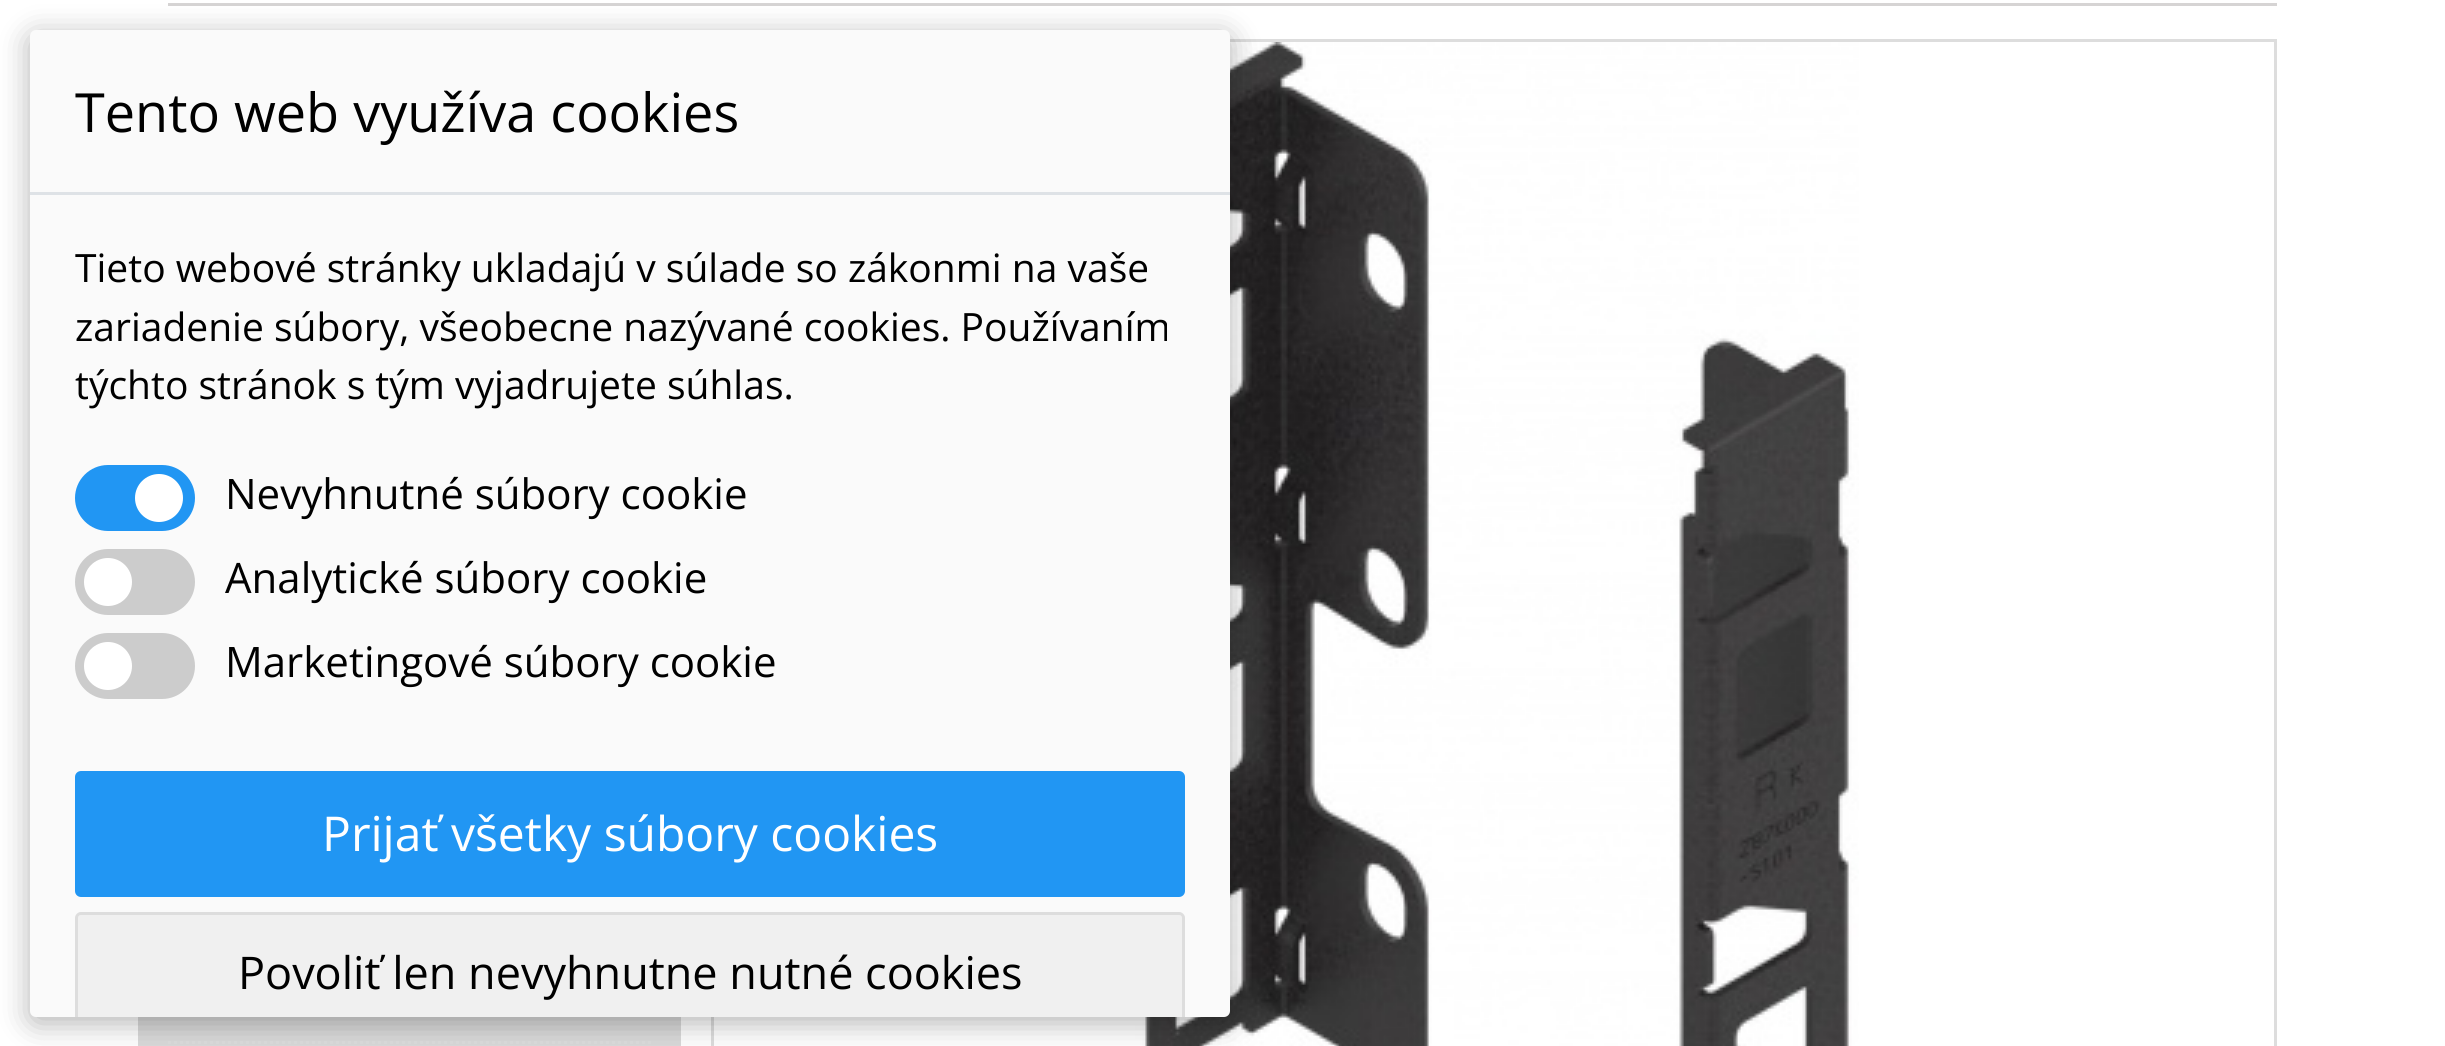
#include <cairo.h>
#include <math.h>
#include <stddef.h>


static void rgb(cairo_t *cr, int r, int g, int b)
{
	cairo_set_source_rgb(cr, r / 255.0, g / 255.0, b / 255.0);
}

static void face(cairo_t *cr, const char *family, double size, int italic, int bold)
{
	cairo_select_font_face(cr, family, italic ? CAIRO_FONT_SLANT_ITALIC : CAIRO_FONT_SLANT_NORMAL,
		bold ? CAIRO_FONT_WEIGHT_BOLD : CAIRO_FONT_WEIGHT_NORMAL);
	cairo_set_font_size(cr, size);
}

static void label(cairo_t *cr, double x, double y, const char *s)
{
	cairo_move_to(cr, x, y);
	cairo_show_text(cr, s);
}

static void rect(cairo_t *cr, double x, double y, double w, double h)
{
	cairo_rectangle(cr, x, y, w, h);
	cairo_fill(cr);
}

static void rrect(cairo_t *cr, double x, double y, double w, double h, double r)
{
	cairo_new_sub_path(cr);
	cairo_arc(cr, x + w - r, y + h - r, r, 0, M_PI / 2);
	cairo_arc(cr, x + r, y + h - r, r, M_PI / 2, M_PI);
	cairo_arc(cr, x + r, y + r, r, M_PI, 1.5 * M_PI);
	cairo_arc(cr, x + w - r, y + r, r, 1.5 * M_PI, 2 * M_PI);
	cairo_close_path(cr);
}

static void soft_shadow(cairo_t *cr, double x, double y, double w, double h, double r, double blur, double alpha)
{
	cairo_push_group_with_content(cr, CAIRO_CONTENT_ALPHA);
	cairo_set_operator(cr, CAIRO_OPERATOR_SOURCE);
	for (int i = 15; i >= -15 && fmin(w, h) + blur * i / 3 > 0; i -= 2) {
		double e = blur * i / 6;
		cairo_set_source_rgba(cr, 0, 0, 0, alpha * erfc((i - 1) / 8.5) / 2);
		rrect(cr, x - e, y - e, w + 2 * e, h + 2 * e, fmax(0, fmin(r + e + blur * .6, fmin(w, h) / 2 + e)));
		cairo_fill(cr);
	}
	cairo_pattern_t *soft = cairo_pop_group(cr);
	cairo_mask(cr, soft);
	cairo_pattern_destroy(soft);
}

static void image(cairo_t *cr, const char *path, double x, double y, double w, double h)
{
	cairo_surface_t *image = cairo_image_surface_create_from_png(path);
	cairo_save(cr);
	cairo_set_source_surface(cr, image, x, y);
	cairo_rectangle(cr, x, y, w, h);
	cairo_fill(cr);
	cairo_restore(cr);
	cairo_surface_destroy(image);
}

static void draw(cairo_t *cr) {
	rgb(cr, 255, 255, 255);
	cairo_paint(cr);
	rgb(cr, 214, 212, 212);
	rect(cr, 168, 3, 2109, 3);
	rgb(cr, 218, 218, 218);
	rect(cr, 138, 1017, 543, 29);
	cairo_new_path(cr);
	cairo_move_to(cr, 168, 1042.5);
	cairo_line_to(cr, 651, 1042.5);
	rgb(cr, 221, 221, 221);
	cairo_set_line_width(cr, 3);
	cairo_set_dash(cr, (double[]){3, 3}, 2, 0);
	cairo_stroke(cr);
	cairo_rectangle(cr, 712.5, 40.5, 1563, 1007);
	cairo_set_dash(cr, NULL, 0, 0);
	cairo_stroke(cr);
	image(cr, "image0.png", 1135, 42, 724, 1004);
	rgb(cr, 0, 0, 0);
	soft_shadow(cr, 30, 36, 1200, 987, 6, 15, 0.3);
	rgb(cr, 250, 250, 250);
	rrect(cr, 30, 30, 1200, 987, 6);
	cairo_fill(cr);
	rgb(cr, 222, 226, 230);
	rect(cr, 30, 192, 1200, 3);
	face(cr, "Open Sans", 54, 0, 0);
	rgb(cr, 0, 0, 0);
	label(cr, 75, 132, "Tento web využíva cookies");
	face(cr, "Open Sans", 39, 0, 0);
	label(cr, 75, 282, "Tieto webové stránky ukladajú v súlade so zákonmi na vaše");
	label(cr, 75, 341, "zariadenie súbory, všeobecne nazývané cookies. Používaním");
	label(cr, 75, 399, "týchto stránok s tým vyjadrujete súhlas.");
	rgb(cr, 33, 150, 243);
	rrect(cr, 75, 465, 120, 66, 33);
	cairo_fill(cr);
	rgb(cr, 255, 255, 255);
	cairo_arc(cr, 159, 498, 24, 0, 2 * M_PI);
	cairo_fill(cr);
	face(cr, "Open Sans", 42, 0, 0);
	rgb(cr, 0, 0, 0);
	label(cr, 225, 509, "Nevyhnutné súbory cookie");
	rgb(cr, 204, 204, 204);
	rrect(cr, 75, 549, 120, 66, 33);
	cairo_fill(cr);
	rgb(cr, 255, 255, 255);
	cairo_arc(cr, 108, 582, 24, 0, 2 * M_PI);
	cairo_fill(cr);
	rgb(cr, 0, 0, 0);
	label(cr, 225, 593, "Analytické súbory cookie");
	rgb(cr, 204, 204, 204);
	rrect(cr, 75, 633, 120, 66, 33);
	cairo_fill(cr);
	rgb(cr, 255, 255, 255);
	cairo_arc(cr, 108, 666, 24, 0, 2 * M_PI);
	cairo_fill(cr);
	rgb(cr, 0, 0, 0);
	label(cr, 225, 677, "Marketingové súbory cookie");
	rgb(cr, 33, 150, 243);
	rrect(cr, 76.5, 772.5, 1107, 123, 4.5);
	cairo_fill_preserve(cr);
	cairo_stroke(cr);
	face(cr, "Open Sans", 48, 0, 0);
	rgb(cr, 255, 255, 255);
	label(cr, 322, 851, "Prijať všetky súbory cookies");
	rgb(cr, 240, 240, 240);
	cairo_new_path(cr);
	cairo_move_to(cr, 81, 912);
	cairo_line_to(cr, 1179, 912);
	cairo_curve_to(cr, 1182.5, 912, 1185, 914.5, 1185, 918);
	cairo_line_to(cr, 1185, 1017);
	cairo_line_to(cr, 75, 1017);
	cairo_line_to(cr, 75, 918);
	cairo_curve_to(cr, 75, 914.5, 77.5, 912, 81, 912);
	cairo_close_path(cr);
	cairo_fill(cr);
	rgb(cr, 221, 221, 221);
	cairo_new_path(cr);
	cairo_move_to(cr, 81, 912);
	cairo_curve_to(cr, 78, 912, 75, 915, 75, 918);
	cairo_line_to(cr, 75, 1017);
	cairo_line_to(cr, 78, 1017);
	cairo_line_to(cr, 78, 918);
	cairo_curve_to(cr, 78, 916, 79, 915, 81, 915);
	cairo_line_to(cr, 1179, 915);
	cairo_curve_to(cr, 1181, 915, 1182, 916, 1182, 918);
	cairo_line_to(cr, 1182, 1017);
	cairo_line_to(cr, 1185, 1017);
	cairo_line_to(cr, 1185, 918);
	cairo_curve_to(cr, 1185, 915, 1182, 912, 1179, 912);
	cairo_close_path(cr);
	cairo_fill(cr);
	face(cr, "Open Sans", 45, 0, 0);
	rgb(cr, 0, 0, 0);
	label(cr, 238, 989, "Povoliť len nevyhnutne nutné cookies");
}

int main(void) {
	cairo_surface_t *surface = cairo_image_surface_create(CAIRO_FORMAT_RGB24, 2445, 1046);
	cairo_t *cr = cairo_create(surface);
	cairo_font_options_t *options = cairo_font_options_create();
	cairo_font_options_set_hint_metrics(options, CAIRO_HINT_METRICS_OFF);
	cairo_font_options_set_hint_style(options, CAIRO_HINT_STYLE_NONE);
	cairo_set_font_options(cr, options);
	cairo_set_miter_limit(cr, 4);
	draw(cr);
	cairo_surface_write_to_png(surface, "render.png");
	cairo_font_options_destroy(options);
	cairo_destroy(cr);
	cairo_surface_destroy(surface);
	return 0;
}
